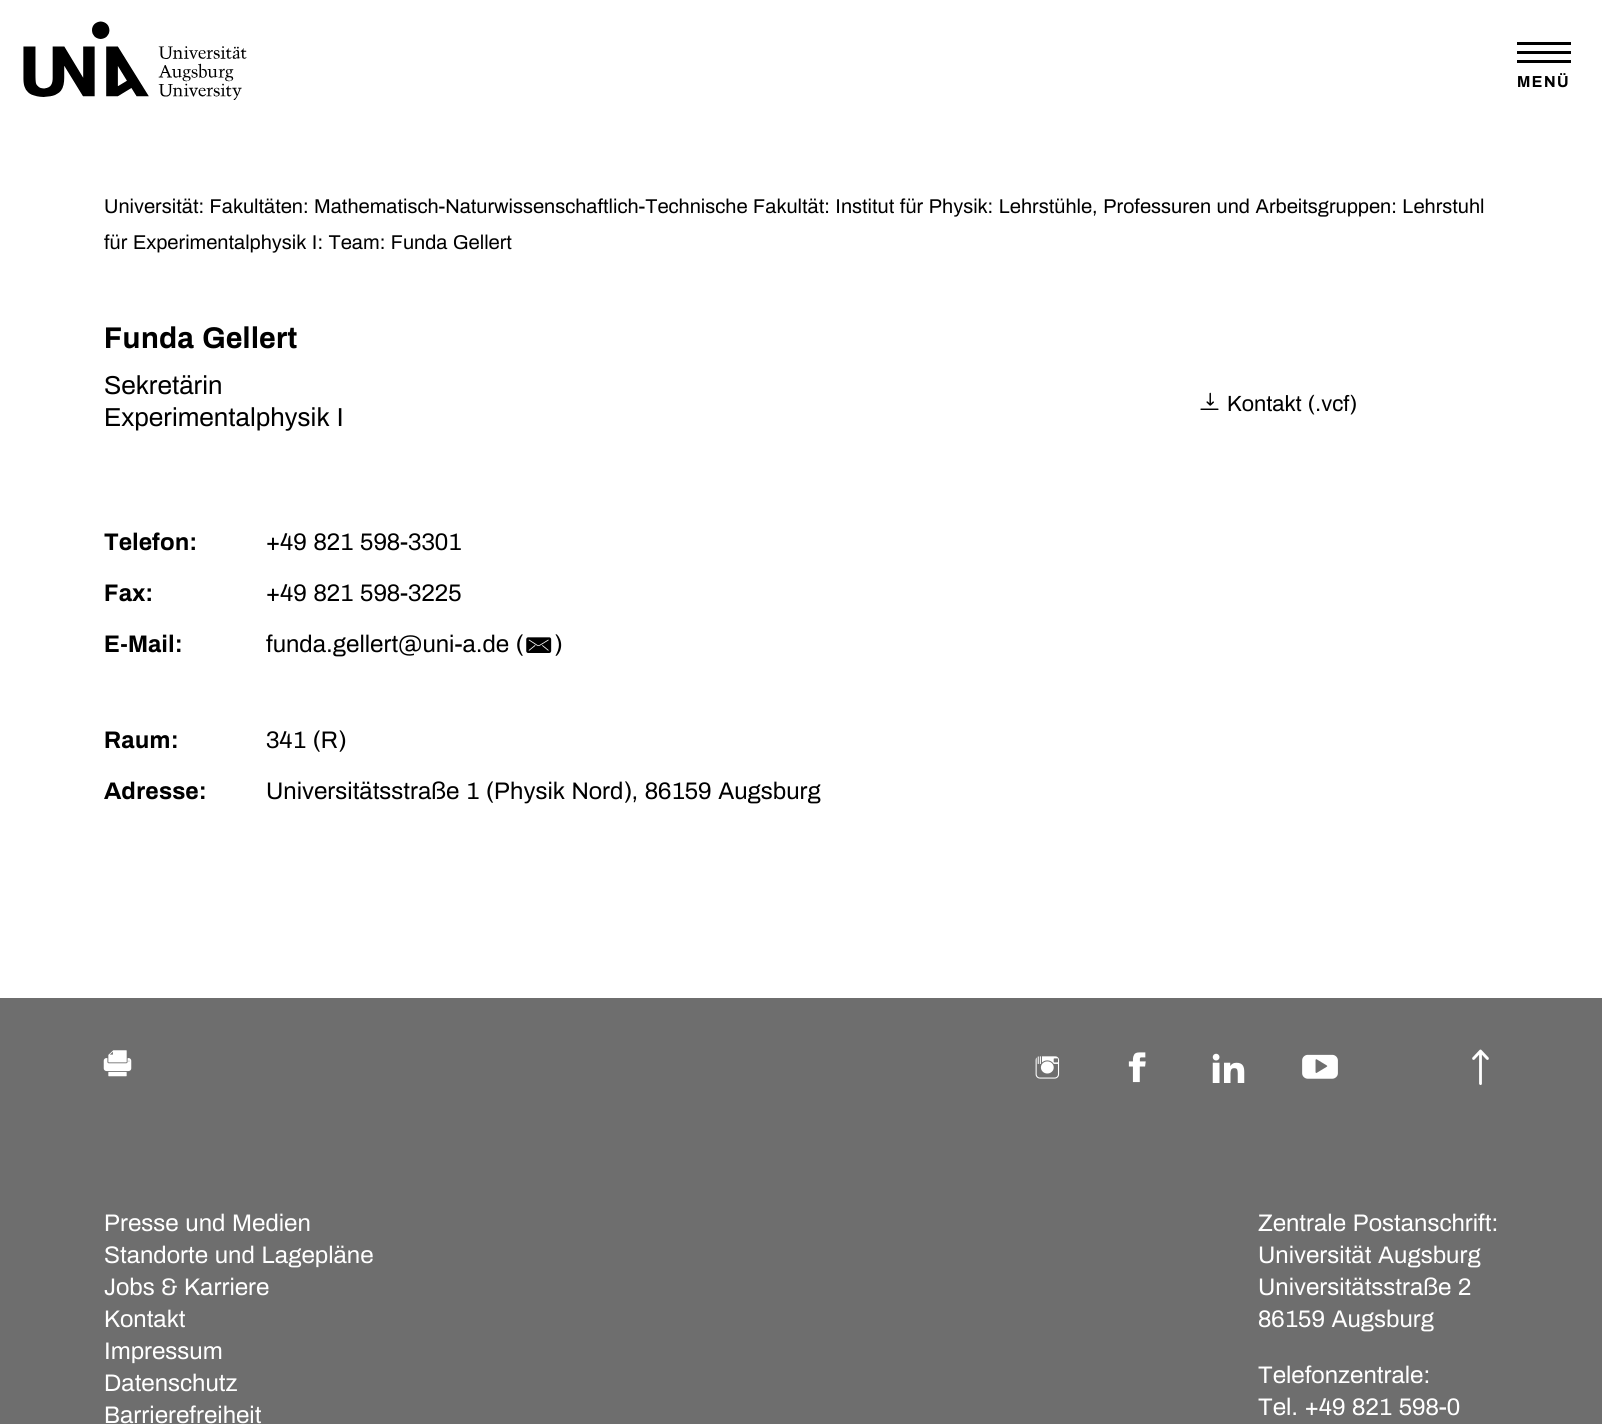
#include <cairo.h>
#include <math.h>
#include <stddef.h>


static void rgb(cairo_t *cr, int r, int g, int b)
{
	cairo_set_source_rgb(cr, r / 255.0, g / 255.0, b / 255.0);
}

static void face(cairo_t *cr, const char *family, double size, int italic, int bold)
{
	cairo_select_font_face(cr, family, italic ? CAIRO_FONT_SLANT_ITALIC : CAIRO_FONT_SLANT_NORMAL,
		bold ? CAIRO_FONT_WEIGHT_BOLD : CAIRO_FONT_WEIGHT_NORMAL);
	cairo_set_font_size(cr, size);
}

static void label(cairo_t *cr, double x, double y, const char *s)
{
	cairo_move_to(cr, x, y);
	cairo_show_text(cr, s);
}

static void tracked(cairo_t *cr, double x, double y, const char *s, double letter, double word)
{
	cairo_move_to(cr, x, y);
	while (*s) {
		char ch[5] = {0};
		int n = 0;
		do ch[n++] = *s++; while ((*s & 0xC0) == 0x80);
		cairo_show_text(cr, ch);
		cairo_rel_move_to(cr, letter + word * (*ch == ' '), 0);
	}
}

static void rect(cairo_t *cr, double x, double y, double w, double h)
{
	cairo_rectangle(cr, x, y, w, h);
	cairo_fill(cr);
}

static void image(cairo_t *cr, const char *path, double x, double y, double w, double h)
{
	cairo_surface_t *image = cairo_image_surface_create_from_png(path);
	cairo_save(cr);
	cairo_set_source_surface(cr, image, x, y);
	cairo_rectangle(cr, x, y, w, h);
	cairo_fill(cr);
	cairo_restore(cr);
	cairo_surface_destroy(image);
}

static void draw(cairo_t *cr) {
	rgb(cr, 255, 255, 255);
	cairo_paint(cr);
	image(cr, "image0.png", 23, 21, 224, 79);
	rgb(cr, 0, 0, 0);
	rect(cr, 1517, 42, 54, 3);
	rect(cr, 1517, 51, 54, 3);
	rect(cr, 1517, 60, 54, 3);
	face(cr, "Archivo", 16, 0, 1);
	tracked(cr, 1517, 87, "MENÜ", 1.5, 0);
	face(cr, "Archivo", 20, 0, 0);
	label(cr, 104, 213, "Universität: Fakultäten: Mathematisch-Naturwissenschaftlich-Technische Fakultät: Institut für Physik: Lehrstühle, Professuren und Arbeitsgruppen: Lehrstuhl");
	label(cr, 104, 249, "für Experimentalphysik I: Team: Funda Gellert");
	face(cr, "Archivo", 30, 0, 1);
	label(cr, 104, 348, "Funda Gellert");
	face(cr, "Archivo", 26, 0, 0);
	label(cr, 104, 394, "Sekretärin");
	label(cr, 104, 426, "Experimentalphysik I");
	face(cr, "Archivo", 24, 0, 1);
	label(cr, 104, 550, "Telefon:");
	face(cr, "Archivo", 24, 0, 0);
	label(cr, 266, 550, "+49 821 598-3301");
	face(cr, "Archivo", 24, 0, 1);
	label(cr, 104, 601, "Fax:");
	face(cr, "Archivo", 24, 0, 0);
	label(cr, 266, 601, "+49 821 598-3225");
	face(cr, "Archivo", 24, 0, 1);
	label(cr, 104, 652, "E-Mail:");
	face(cr, "Archivo", 24, 0, 0);
	label(cr, 266, 652, "funda.gellert@uni-a.de (");
	image(cr, "image1.png", 526, 637, 26, 16);
	label(cr, 554, 652, ")");
	face(cr, "Archivo", 24, 0, 1);
	label(cr, 104, 748, "Raum:");
	face(cr, "Archivo", 24, 0, 0);
	label(cr, 266, 748, "341 (R)");
	face(cr, "Archivo", 24, 0, 1);
	label(cr, 104, 799, "Adresse:");
	face(cr, "Archivo", 24, 0, 0);
	label(cr, 266, 799, "Universitätsstraße 1 (Physik Nord), 86159 Augsburg");
	image(cr, "image2.png", 1200, 392, 19, 18);
	face(cr, "Archivo", 22, 0, 0);
	label(cr, 1227, 411, "Kontakt (.vcf)");
	rgb(cr, 110, 110, 110);
	rect(cr, 0, 998, 1602, 426);
	image(cr, "image3.png", 103, 1050, 29, 27);
	image(cr, "image4.png", 1035, 1056, 25, 23);
	image(cr, "image5.png", 1128, 1052, 18, 31);
	image(cr, "image6.png", 1212, 1053, 33, 30);
	image(cr, "image7.png", 1302, 1054, 36, 25);
	image(cr, "image8.png", 1472, 1049, 17, 36);
	face(cr, "Archivo", 24, 0, 0);
	rgb(cr, 255, 255, 255);
	label(cr, 104, 1231, "Presse und Medien");
	label(cr, 104, 1263, "Standorte und Lagepläne");
	label(cr, 104, 1295, "Jobs & Karriere");
	label(cr, 104, 1327, "Kontakt");
	label(cr, 104, 1359, "Impressum");
	label(cr, 104, 1391, "Datenschutz");
	label(cr, 104, 1423, "Barrierefreiheit");
	label(cr, 1258, 1231, "Zentrale Postanschrift:");
	label(cr, 1258, 1263, "Universität Augsburg");
	label(cr, 1258, 1295, "Universitätsstraße 2");
	label(cr, 1258, 1327, "86159 Augsburg");
	label(cr, 1258, 1383, "Telefonzentrale:");
	label(cr, 1258, 1415, "Tel. +49 821 598-0");
}

int main(void) {
	cairo_surface_t *surface = cairo_image_surface_create(CAIRO_FORMAT_RGB24, 1602, 1424);
	cairo_t *cr = cairo_create(surface);
	cairo_font_options_t *options = cairo_font_options_create();
	cairo_font_options_set_hint_metrics(options, CAIRO_HINT_METRICS_OFF);
	cairo_font_options_set_hint_style(options, CAIRO_HINT_STYLE_NONE);
	cairo_set_font_options(cr, options);
	cairo_set_miter_limit(cr, 4);
	draw(cr);
	cairo_surface_write_to_png(surface, "render.png");
	cairo_font_options_destroy(options);
	cairo_destroy(cr);
	cairo_surface_destroy(surface);
	return 0;
}
